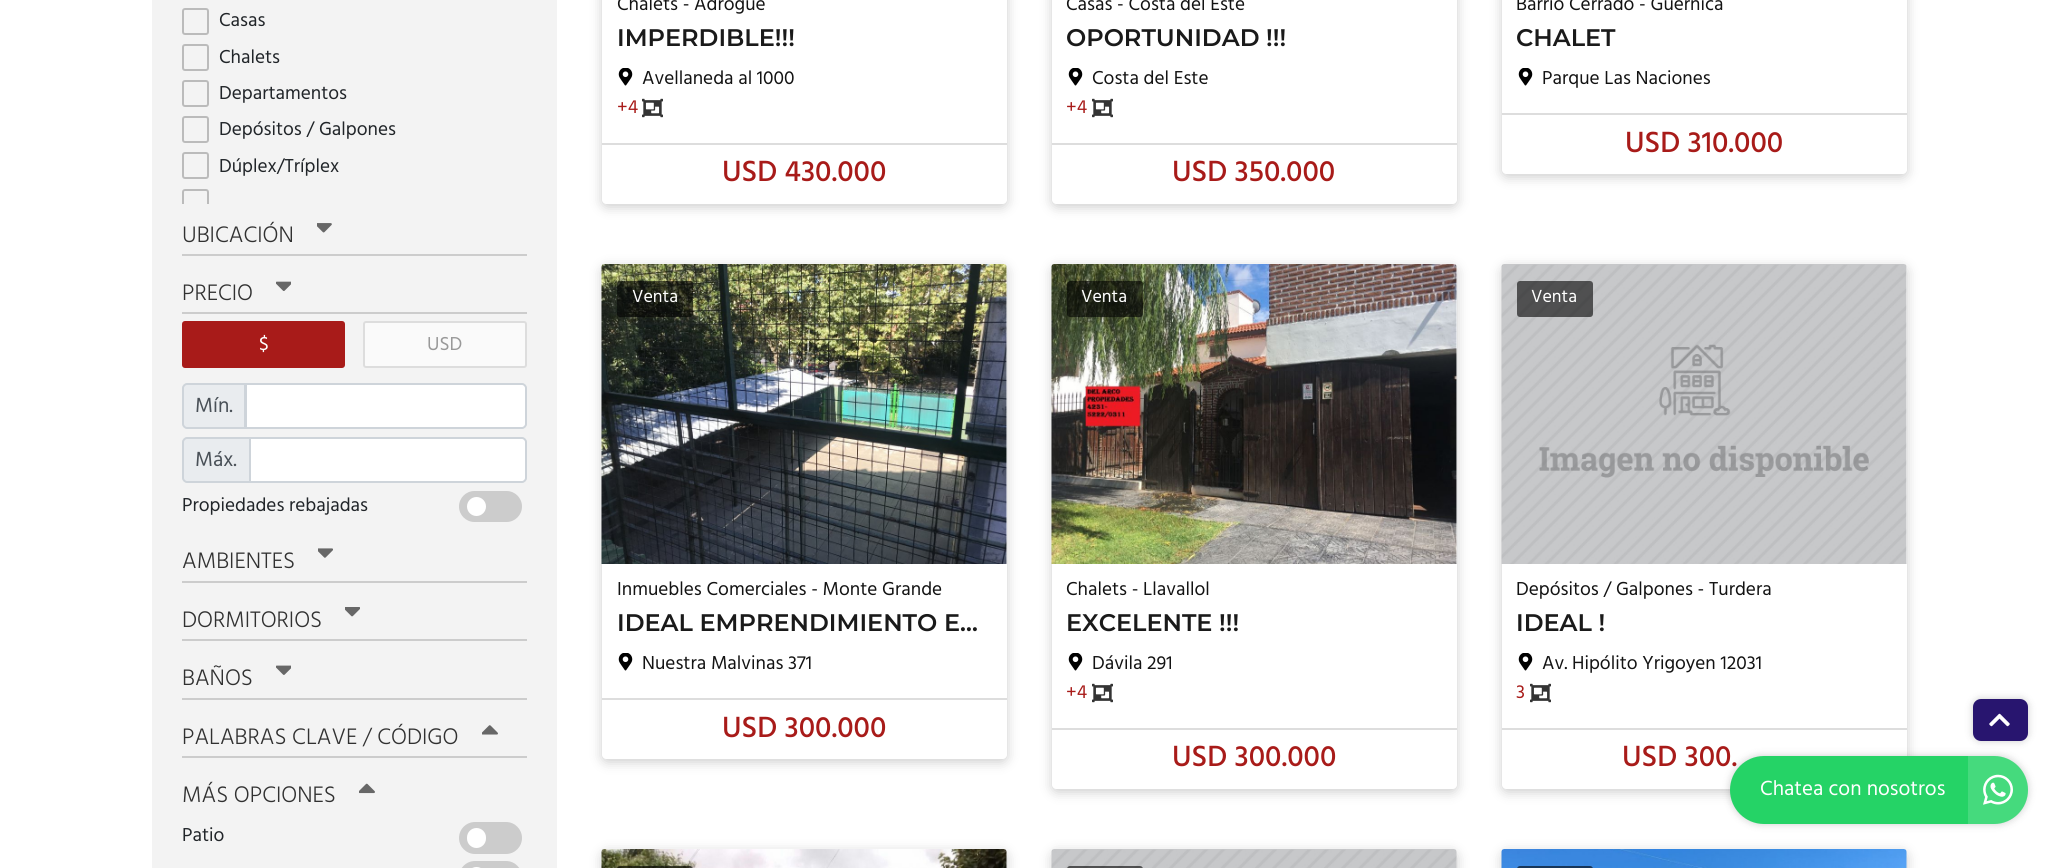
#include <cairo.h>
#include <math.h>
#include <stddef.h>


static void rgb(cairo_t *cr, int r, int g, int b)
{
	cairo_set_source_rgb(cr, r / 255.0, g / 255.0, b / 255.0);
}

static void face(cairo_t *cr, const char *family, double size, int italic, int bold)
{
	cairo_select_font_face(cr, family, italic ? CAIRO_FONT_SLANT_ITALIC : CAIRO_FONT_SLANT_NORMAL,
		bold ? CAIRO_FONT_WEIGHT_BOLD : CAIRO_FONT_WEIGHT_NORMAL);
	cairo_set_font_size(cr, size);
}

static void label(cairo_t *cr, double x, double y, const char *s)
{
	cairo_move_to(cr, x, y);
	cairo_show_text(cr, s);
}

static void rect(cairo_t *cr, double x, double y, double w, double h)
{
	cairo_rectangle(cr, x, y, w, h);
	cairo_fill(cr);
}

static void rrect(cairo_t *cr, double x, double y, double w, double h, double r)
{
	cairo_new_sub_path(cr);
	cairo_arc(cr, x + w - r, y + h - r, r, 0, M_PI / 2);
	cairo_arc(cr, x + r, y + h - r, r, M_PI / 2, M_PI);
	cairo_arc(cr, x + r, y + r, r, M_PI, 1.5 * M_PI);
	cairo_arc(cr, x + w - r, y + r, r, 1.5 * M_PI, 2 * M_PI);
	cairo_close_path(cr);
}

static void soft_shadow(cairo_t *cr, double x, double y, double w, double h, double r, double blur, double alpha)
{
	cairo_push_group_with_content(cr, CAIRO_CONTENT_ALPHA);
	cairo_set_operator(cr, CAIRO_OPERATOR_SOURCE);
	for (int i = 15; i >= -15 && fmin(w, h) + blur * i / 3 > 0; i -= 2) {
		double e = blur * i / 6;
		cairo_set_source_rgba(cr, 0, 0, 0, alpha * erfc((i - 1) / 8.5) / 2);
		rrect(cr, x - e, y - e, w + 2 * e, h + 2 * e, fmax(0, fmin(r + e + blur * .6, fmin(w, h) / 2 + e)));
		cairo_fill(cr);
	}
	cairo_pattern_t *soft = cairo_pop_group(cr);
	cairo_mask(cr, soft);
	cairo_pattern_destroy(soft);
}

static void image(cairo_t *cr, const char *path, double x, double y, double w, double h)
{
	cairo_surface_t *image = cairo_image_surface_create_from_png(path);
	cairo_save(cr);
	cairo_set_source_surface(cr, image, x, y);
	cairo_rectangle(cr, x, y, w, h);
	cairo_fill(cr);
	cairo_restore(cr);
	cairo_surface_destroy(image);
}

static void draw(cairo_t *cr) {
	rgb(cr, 255, 255, 255);
	cairo_paint(cr);
	rgb(cr, 243, 243, 243);
	rect(cr, 152, 0, 405, 868);
	rrect(cr, 183, 9, 25, 25, 2);
	rgb(cr, 187, 187, 187);
	cairo_stroke(cr);
	face(cr, "Hind", 19.25, 0, 0);
	rgb(cr, 33, 37, 41);
	label(cr, 219, 26, "Casas");
	rrect(cr, 183, 45, 25, 25, 2);
	rgb(cr, 187, 187, 187);
	cairo_stroke(cr);
	rgb(cr, 33, 37, 41);
	label(cr, 219, 63, "Chalets");
	rrect(cr, 183, 81, 25, 25, 2);
	rgb(cr, 187, 187, 187);
	cairo_stroke(cr);
	rgb(cr, 33, 37, 41);
	label(cr, 219, 99, "Departamentos");
	rrect(cr, 183, 117, 25, 25, 2);
	rgb(cr, 187, 187, 187);
	cairo_stroke(cr);
	rgb(cr, 33, 37, 41);
	label(cr, 219, 135, "Depósitos / Galpones");
	rrect(cr, 183, 153, 25, 25, 2);
	rgb(cr, 187, 187, 187);
	cairo_stroke(cr);
	rgb(cr, 33, 37, 41);
	label(cr, 219, 172, "Dúplex/Tríplex");
	cairo_save(cr);
	cairo_rectangle(cr, 182, 0, 345, 204);
	cairo_clip(cr);
	rrect(cr, 183, 190, 25, 25, 2);
	rgb(cr, 187, 187, 187);
	cairo_stroke(cr);
	cairo_restore(cr);
	rgb(cr, 204, 204, 204);
	rect(cr, 182, 254, 345, 2);
	face(cr, "Hind Light", 23, 0, 0);
	rgb(cr, 49, 49, 49);
	label(cr, 182, 242, "UBICACIÓN");
	image(cr, "image0.png", 317, 223, 15, 10);
	rgb(cr, 204, 204, 204);
	rect(cr, 182, 312, 345, 2);
	rgb(cr, 49, 49, 49);
	label(cr, 182, 300, "PRECIO");
	image(cr, "image1.png", 276, 281, 15, 10);
	rgb(cr, 168, 27, 25);
	rrect(cr, 183, 322, 161, 45, 2);
	cairo_fill_preserve(cr);
	cairo_stroke(cr);
	face(cr, "Hind", 19.25, 0, 0);
	rgb(cr, 255, 255, 255);
	label(cr, 259, 350, "$");
	rgb(cr, 250, 250, 250);
	rrect(cr, 364, 322, 162, 45, 2);
	cairo_fill_preserve(cr);
	rgb(cr, 221, 221, 221);
	cairo_stroke(cr);
	rgb(cr, 153, 153, 153);
	label(cr, 427, 350, "USD");
	rgb(cr, 233, 236, 239);
	cairo_new_path(cr);
	cairo_move_to(cr, 187, 384);
	cairo_line_to(cr, 245, 384);
	cairo_line_to(cr, 245, 428);
	cairo_line_to(cr, 187, 428);
	cairo_curve_to(cr, 185, 428, 183, 426, 183, 424);
	cairo_line_to(cr, 183, 388);
	cairo_curve_to(cr, 183, 386, 185, 384, 187, 384);
	cairo_close_path(cr);
	cairo_fill_preserve(cr);
	rgb(cr, 206, 212, 218);
	cairo_stroke(cr);
	face(cr, "Hind", 21, 0, 0);
	rgb(cr, 73, 80, 87);
	label(cr, 195, 412, "Mín.");
	rgb(cr, 255, 255, 255);
	cairo_new_path(cr);
	cairo_move_to(cr, 246, 384);
	cairo_line_to(cr, 522, 384);
	cairo_curve_to(cr, 524, 384, 526, 386, 526, 388);
	cairo_line_to(cr, 526, 424);
	cairo_curve_to(cr, 526, 426, 524, 428, 522, 428);
	cairo_line_to(cr, 246, 428);
	cairo_close_path(cr);
	cairo_fill_preserve(cr);
	rgb(cr, 206, 212, 218);
	cairo_stroke(cr);
	rgb(cr, 233, 236, 239);
	cairo_new_path(cr);
	cairo_move_to(cr, 187, 438);
	cairo_line_to(cr, 250, 438);
	cairo_line_to(cr, 250, 482);
	cairo_line_to(cr, 187, 482);
	cairo_curve_to(cr, 185, 482, 183, 480, 183, 478);
	cairo_line_to(cr, 183, 442);
	cairo_curve_to(cr, 183, 440, 185, 438, 187, 438);
	cairo_close_path(cr);
	cairo_fill_preserve(cr);
	rgb(cr, 206, 212, 218);
	cairo_stroke(cr);
	rgb(cr, 73, 80, 87);
	label(cr, 195, 466, "Máx.");
	rgb(cr, 255, 255, 255);
	cairo_new_path(cr);
	cairo_move_to(cr, 250, 438);
	cairo_line_to(cr, 522, 438);
	cairo_curve_to(cr, 524, 438, 526, 440, 526, 442);
	cairo_line_to(cr, 526, 478);
	cairo_curve_to(cr, 526, 480, 524, 482, 522, 482);
	cairo_line_to(cr, 250, 482);
	cairo_close_path(cr);
	cairo_fill_preserve(cr);
	rgb(cr, 206, 212, 218);
	cairo_stroke(cr);
	face(cr, "Hind", 19.25, 0, 0);
	rgb(cr, 33, 37, 41);
	label(cr, 182, 511, "Propiedades rebajadas");
	rgb(cr, 204, 204, 204);
	rrect(cr, 459, 491, 63, 31, 15.5);
	cairo_fill(cr);
	rgb(cr, 255, 255, 255);
	cairo_arc(cr, 476.5, 506.5, 9.5, 0, 2 * M_PI);
	cairo_fill(cr);
	rgb(cr, 204, 204, 204);
	rect(cr, 182, 581, 345, 2);
	face(cr, "Hind Light", 23, 0, 0);
	rgb(cr, 49, 49, 49);
	label(cr, 182, 568, "AMBIENTES");
	image(cr, "image2.png", 318, 548, 15, 10);
	rgb(cr, 204, 204, 204);
	rect(cr, 182, 639, 345, 2);
	rgb(cr, 49, 49, 49);
	label(cr, 182, 627, "DORMITORIOS");
	image(cr, "image3.png", 345, 607, 15, 10);
	rgb(cr, 204, 204, 204);
	rect(cr, 182, 698, 345, 2);
	rgb(cr, 49, 49, 49);
	label(cr, 182, 685, "BAÑOS");
	image(cr, "image4.png", 276, 665, 15, 10);
	rgb(cr, 204, 204, 204);
	rect(cr, 182, 756, 345, 2);
	rgb(cr, 49, 49, 49);
	label(cr, 182, 744, "PALABRAS CLAVE / CÓDIGO");
	image(cr, "image5.png", 482, 725, 16, 10);
	label(cr, 182, 802, "MÁS OPCIONES");
	image(cr, "image6.png", 359, 783, 16, 11);
	face(cr, "Hind", 19.25, 0, 0);
	rgb(cr, 33, 37, 41);
	label(cr, 182, 841, "Patio");
	rgb(cr, 204, 204, 204);
	rrect(cr, 459, 822, 63, 32, 16);
	cairo_fill(cr);
	rgb(cr, 255, 255, 255);
	rrect(cr, 467, 828, 19, 20, 9.5);
	cairo_fill(cr);
	rgb(cr, 204, 204, 204);
	rrect(cr, 459, 861, 63, 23, 16);
	cairo_fill(cr);
	rgb(cr, 255, 255, 255);
	rrect(cr, 467, 867, 19, 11, 9.5);
	cairo_fill(cr);
	cairo_save(cr);
	cairo_set_fill_rule(cr, CAIRO_FILL_RULE_EVEN_ODD);
	cairo_new_path(cr);
	cairo_move_to(cr, 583, 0);
	cairo_line_to(cr, 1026, 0);
	cairo_line_to(cr, 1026, 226);
	cairo_line_to(cr, 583, 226);
	cairo_close_path(cr);
	cairo_move_to(cr, 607, -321);
	cairo_line_to(cr, 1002, -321);
	cairo_curve_to(cr, 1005, -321, 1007, -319, 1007, -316);
	cairo_line_to(cr, 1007, 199);
	cairo_curve_to(cr, 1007, 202, 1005, 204, 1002, 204);
	cairo_line_to(cr, 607, 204);
	cairo_curve_to(cr, 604, 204, 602, 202, 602, 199);
	cairo_line_to(cr, 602, -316);
	cairo_curve_to(cr, 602, -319, 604, -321, 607, -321);
	cairo_close_path(cr);
	cairo_clip(cr);
	rgb(cr, 0, 0, 0);
	soft_shadow(cr, 602, -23, 405, 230, 5, 6, 0.2);
	cairo_restore(cr);
	rgb(cr, 19, 19, 19);
	label(cr, 617, 10, "Chalets - Adrogué");
	face(cr, "Montserrat SemiBold", 24, 0, 0);
	rgb(cr, 26, 26, 26);
	label(cr, 617, 46, "IMPERDIBLE!!!");
	image(cr, "image7.png", 618, 68, 15, 18);
	face(cr, "Hind", 19.25, 0, 0);
	rgb(cr, 19, 19, 19);
	label(cr, 642, 84, "Avellaneda al 1000");
	rgb(cr, 168, 27, 25);
	label(cr, 617, 113, "+4");
	image(cr, "image8.png", 642, 98, 21, 20);
	rgb(cr, 221, 221, 221);
	rect(cr, 602, 143, 405, 2);
	face(cr, "Hind Medium", 30, 0, 0);
	rgb(cr, 168, 27, 25);
	label(cr, 722, 181, "USD 430.000");
	cairo_save(cr);
	cairo_set_fill_rule(cr, CAIRO_FILL_RULE_EVEN_ODD);
	cairo_new_path(cr);
	cairo_move_to(cr, 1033, 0);
	cairo_line_to(cr, 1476, 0);
	cairo_line_to(cr, 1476, 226);
	cairo_line_to(cr, 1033, 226);
	cairo_close_path(cr);
	cairo_move_to(cr, 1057, -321);
	cairo_line_to(cr, 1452, -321);
	cairo_curve_to(cr, 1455, -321, 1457, -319, 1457, -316);
	cairo_line_to(cr, 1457, 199);
	cairo_curve_to(cr, 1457, 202, 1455, 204, 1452, 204);
	cairo_line_to(cr, 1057, 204);
	cairo_curve_to(cr, 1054, 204, 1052, 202, 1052, 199);
	cairo_line_to(cr, 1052, -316);
	cairo_curve_to(cr, 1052, -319, 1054, -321, 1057, -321);
	cairo_close_path(cr);
	cairo_clip(cr);
	rgb(cr, 0, 0, 0);
	soft_shadow(cr, 1052, -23, 405, 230, 5, 6, 0.2);
	cairo_restore(cr);
	face(cr, "Hind", 19.25, 0, 0);
	rgb(cr, 19, 19, 19);
	label(cr, 1066, 10, "Casas - Costa del Este");
	face(cr, "Montserrat SemiBold", 24, 0, 0);
	rgb(cr, 26, 26, 26);
	label(cr, 1066, 46, "OPORTUNIDAD !!!");
	image(cr, "image7.png", 1068, 68, 15, 18);
	face(cr, "Hind", 19.25, 0, 0);
	rgb(cr, 19, 19, 19);
	label(cr, 1092, 84, "Costa del Este");
	rgb(cr, 168, 27, 25);
	label(cr, 1066, 113, "+4");
	image(cr, "image8.png", 1092, 98, 21, 20);
	rgb(cr, 221, 221, 221);
	rect(cr, 1052, 143, 405, 2);
	face(cr, "Hind Medium", 30, 0, 0);
	rgb(cr, 168, 27, 25);
	label(cr, 1172, 181, "USD 350.000");
	cairo_save(cr);
	cairo_set_fill_rule(cr, CAIRO_FILL_RULE_EVEN_ODD);
	cairo_new_path(cr);
	cairo_move_to(cr, 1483, 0);
	cairo_line_to(cr, 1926, 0);
	cairo_line_to(cr, 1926, 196);
	cairo_line_to(cr, 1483, 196);
	cairo_close_path(cr);
	cairo_move_to(cr, 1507, -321);
	cairo_line_to(cr, 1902, -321);
	cairo_curve_to(cr, 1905, -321, 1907, -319, 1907, -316);
	cairo_line_to(cr, 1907, 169);
	cairo_curve_to(cr, 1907, 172, 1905, 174, 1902, 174);
	cairo_line_to(cr, 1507, 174);
	cairo_curve_to(cr, 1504, 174, 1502, 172, 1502, 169);
	cairo_line_to(cr, 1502, -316);
	cairo_curve_to(cr, 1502, -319, 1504, -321, 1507, -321);
	cairo_close_path(cr);
	cairo_clip(cr);
	rgb(cr, 0, 0, 0);
	soft_shadow(cr, 1502, -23, 405, 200, 5, 6, 0.2);
	cairo_restore(cr);
	face(cr, "Hind", 19.25, 0, 0);
	rgb(cr, 19, 19, 19);
	label(cr, 1516, 10, "Barrio Cerrado - Guernica");
	face(cr, "Montserrat SemiBold", 24, 0, 0);
	rgb(cr, 26, 26, 26);
	label(cr, 1516, 46, "CHALET");
	image(cr, "image7.png", 1518, 68, 15, 18);
	face(cr, "Hind", 19.25, 0, 0);
	rgb(cr, 19, 19, 19);
	label(cr, 1542, 84, "Parque Las Naciones");
	rgb(cr, 221, 221, 221);
	rect(cr, 1502, 113, 405, 2);
	face(cr, "Hind Medium", 30, 0, 0);
	rgb(cr, 168, 27, 25);
	label(cr, 1625, 152, "USD 310.000");
	cairo_save(cr);
	cairo_set_fill_rule(cr, CAIRO_FILL_RULE_EVEN_ODD);
	cairo_new_path(cr);
	cairo_move_to(cr, 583, 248);
	cairo_line_to(cr, 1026, 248);
	cairo_line_to(cr, 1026, 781);
	cairo_line_to(cr, 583, 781);
	cairo_close_path(cr);
	cairo_move_to(cr, 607, 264);
	cairo_line_to(cr, 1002, 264);
	cairo_curve_to(cr, 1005, 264, 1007, 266, 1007, 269);
	cairo_line_to(cr, 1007, 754);
	cairo_curve_to(cr, 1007, 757, 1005, 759, 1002, 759);
	cairo_line_to(cr, 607, 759);
	cairo_curve_to(cr, 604, 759, 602, 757, 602, 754);
	cairo_line_to(cr, 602, 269);
	cairo_curve_to(cr, 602, 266, 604, 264, 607, 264);
	cairo_close_path(cr);
	cairo_clip(cr);
	rgb(cr, 0, 0, 0);
	soft_shadow(cr, 602, 267, 405, 495, 5, 6, 0.2);
	cairo_restore(cr);
	image(cr, "image9.png", 601, 264, 406, 300);
	cairo_set_source_rgba(cr, 0, 0, 0, 0.6);
	rrect(cr, 617, 281, 76, 36, 3);
	cairo_fill(cr);
	face(cr, "Hind", 18, 0, 0);
	rgb(cr, 255, 255, 255);
	label(cr, 632, 302, "Venta");
	face(cr, "Hind", 19.25, 0, 0);
	rgb(cr, 19, 19, 19);
	label(cr, 617, 595, "Inmuebles Comerciales - Monte Grande");
	face(cr, "Montserrat SemiBold", 24, 0, 0);
	rgb(cr, 26, 26, 26);
	label(cr, 617, 631, "IDEAL EMPRENDIMIENTO E…");
	image(cr, "image7.png", 618, 653, 15, 18);
	face(cr, "Hind", 19.25, 0, 0);
	rgb(cr, 19, 19, 19);
	label(cr, 642, 669, "Nuestra Malvinas 371");
	rgb(cr, 221, 221, 221);
	rect(cr, 602, 698, 405, 2);
	face(cr, "Hind Medium", 30, 0, 0);
	rgb(cr, 168, 27, 25);
	label(cr, 722, 737, "USD 300.000");
	cairo_save(cr);
	cairo_set_fill_rule(cr, CAIRO_FILL_RULE_EVEN_ODD);
	cairo_new_path(cr);
	cairo_move_to(cr, 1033, 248);
	cairo_line_to(cr, 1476, 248);
	cairo_line_to(cr, 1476, 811);
	cairo_line_to(cr, 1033, 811);
	cairo_close_path(cr);
	cairo_move_to(cr, 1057, 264);
	cairo_line_to(cr, 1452, 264);
	cairo_curve_to(cr, 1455, 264, 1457, 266, 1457, 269);
	cairo_line_to(cr, 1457, 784);
	cairo_curve_to(cr, 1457, 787, 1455, 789, 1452, 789);
	cairo_line_to(cr, 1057, 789);
	cairo_curve_to(cr, 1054, 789, 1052, 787, 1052, 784);
	cairo_line_to(cr, 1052, 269);
	cairo_curve_to(cr, 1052, 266, 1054, 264, 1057, 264);
	cairo_close_path(cr);
	cairo_clip(cr);
	rgb(cr, 0, 0, 0);
	soft_shadow(cr, 1052, 267, 405, 525, 5, 6, 0.2);
	cairo_restore(cr);
	image(cr, "image10.png", 1051, 264, 406, 300);
	cairo_set_source_rgba(cr, 0, 0, 0, 0.6);
	rrect(cr, 1067, 281, 76, 36, 3);
	cairo_fill(cr);
	face(cr, "Hind", 18, 0, 0);
	rgb(cr, 255, 255, 255);
	label(cr, 1081, 302, "Venta");
	face(cr, "Hind", 19.25, 0, 0);
	rgb(cr, 19, 19, 19);
	label(cr, 1066, 595, "Chalets - Llavallol");
	face(cr, "Montserrat SemiBold", 24, 0, 0);
	rgb(cr, 26, 26, 26);
	label(cr, 1066, 631, "EXCELENTE !!!");
	image(cr, "image7.png", 1068, 653, 15, 18);
	face(cr, "Hind", 19.25, 0, 0);
	rgb(cr, 19, 19, 19);
	label(cr, 1092, 669, "Dávila 291");
	rgb(cr, 168, 27, 25);
	label(cr, 1066, 698, "+4");
	image(cr, "image8.png", 1092, 683, 21, 20);
	rgb(cr, 221, 221, 221);
	rect(cr, 1052, 728, 405, 2);
	face(cr, "Hind Medium", 30, 0, 0);
	rgb(cr, 168, 27, 25);
	label(cr, 1172, 766, "USD 300.000");
	cairo_save(cr);
	cairo_set_fill_rule(cr, CAIRO_FILL_RULE_EVEN_ODD);
	cairo_new_path(cr);
	cairo_move_to(cr, 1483, 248);
	cairo_line_to(cr, 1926, 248);
	cairo_line_to(cr, 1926, 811);
	cairo_line_to(cr, 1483, 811);
	cairo_close_path(cr);
	cairo_move_to(cr, 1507, 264);
	cairo_line_to(cr, 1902, 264);
	cairo_curve_to(cr, 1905, 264, 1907, 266, 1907, 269);
	cairo_line_to(cr, 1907, 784);
	cairo_curve_to(cr, 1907, 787, 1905, 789, 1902, 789);
	cairo_line_to(cr, 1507, 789);
	cairo_curve_to(cr, 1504, 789, 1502, 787, 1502, 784);
	cairo_line_to(cr, 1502, 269);
	cairo_curve_to(cr, 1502, 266, 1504, 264, 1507, 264);
	cairo_close_path(cr);
	cairo_clip(cr);
	rgb(cr, 0, 0, 0);
	soft_shadow(cr, 1502, 267, 405, 525, 5, 6, 0.2);
	cairo_restore(cr);
	image(cr, "image11.png", 1501, 264, 406, 300);
	cairo_set_source_rgba(cr, 0, 0, 0, 0.6);
	rrect(cr, 1517, 281, 76, 36, 3);
	cairo_fill(cr);
	face(cr, "Hind", 18, 0, 0);
	rgb(cr, 255, 255, 255);
	label(cr, 1531, 302, "Venta");
	face(cr, "Hind", 19.25, 0, 0);
	rgb(cr, 19, 19, 19);
	label(cr, 1516, 595, "Depósitos / Galpones - Turdera");
	face(cr, "Montserrat SemiBold", 24, 0, 0);
	rgb(cr, 26, 26, 26);
	label(cr, 1516, 631, "IDEAL !");
	image(cr, "image7.png", 1518, 653, 15, 18);
	face(cr, "Hind", 19.25, 0, 0);
	rgb(cr, 19, 19, 19);
	label(cr, 1542, 669, "Av. Hipólito Yrigoyen 12031");
	rgb(cr, 168, 27, 25);
	label(cr, 1516, 698, "3");
	image(cr, "image8.png", 1530, 683, 21, 20);
	rgb(cr, 221, 221, 221);
	rect(cr, 1502, 728, 405, 2);
	face(cr, "Hind Medium", 30, 0, 0);
	rgb(cr, 168, 27, 25);
	label(cr, 1622, 766, "USD 300.");
	rgb(cr, 0, 0, 0);
	soft_shadow(cr, 602, 852, 405, 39, 5, 6, 0.2);
	image(cr, "image12.png", 601, 849, 406, 19);
	cairo_set_source_rgba(cr, 0, 0, 0, 0.6);
	rrect(cr, 617, 866, 76, 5, 3);
	cairo_fill(cr);
	rgb(cr, 0, 0, 0);
	soft_shadow(cr, 1052, 852, 405, 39, 5, 6, 0.2);
	image(cr, "image13.png", 1051, 849, 406, 19);
	cairo_set_source_rgba(cr, 0, 0, 0, 0.6);
	rrect(cr, 1067, 866, 76, 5, 3);
	cairo_fill(cr);
	rgb(cr, 0, 0, 0);
	soft_shadow(cr, 1502, 852, 405, 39, 5, 6, 0.2);
	image(cr, "image14.png", 1501, 849, 406, 19);
	cairo_set_source_rgba(cr, 0, 0, 0, 0.6);
	rrect(cr, 1517, 866, 76, 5, 3);
	cairo_fill(cr);
	rgb(cr, 0, 0, 0);
	soft_shadow(cr, 1973, 699, 55, 42, 8, 4, 0.2);
	rgb(cr, 40, 21, 111);
	rrect(cr, 1973, 699, 55, 42, 8);
	cairo_fill(cr);
	image(cr, "image15.png", 1989, 713, 21, 14);
	rgb(cr, 0, 0, 0);
	soft_shadow(cr, 1730, 756, 298, 68, 34, 4, 0.2);
	rgb(cr, 37, 211, 102);
	rrect(cr, 1730, 756, 298, 68, 34);
	cairo_fill(cr);
	face(cr, "Hind", 21, 0, 0);
	rgb(cr, 255, 255, 255);
	label(cr, 1760, 795, "Chatea con nosotros");
	cairo_set_source_rgba(cr, 1, 1, 1, 0.15);
	cairo_new_path(cr);
	cairo_move_to(cr, 1968, 756);
	cairo_line_to(cr, 1994, 756);
	cairo_curve_to(cr, 2013, 756, 2028, 771, 2028, 790);
	cairo_curve_to(cr, 2028, 809, 2013, 824, 1994, 824);
	cairo_line_to(cr, 1968, 824);
	cairo_close_path(cr);
	cairo_fill(cr);
	image(cr, "image16.png", 1983, 774, 30, 31);
}

int main(void) {
	cairo_surface_t *surface = cairo_image_surface_create(CAIRO_FORMAT_RGB24, 2057, 868);
	cairo_t *cr = cairo_create(surface);
	cairo_font_options_t *options = cairo_font_options_create();
	cairo_font_options_set_hint_metrics(options, CAIRO_HINT_METRICS_OFF);
	cairo_font_options_set_hint_style(options, CAIRO_HINT_STYLE_NONE);
	cairo_set_font_options(cr, options);
	cairo_set_miter_limit(cr, 4);
	draw(cr);
	cairo_surface_write_to_png(surface, "render.png");
	cairo_font_options_destroy(options);
	cairo_destroy(cr);
	cairo_surface_destroy(surface);
	return 0;
}
